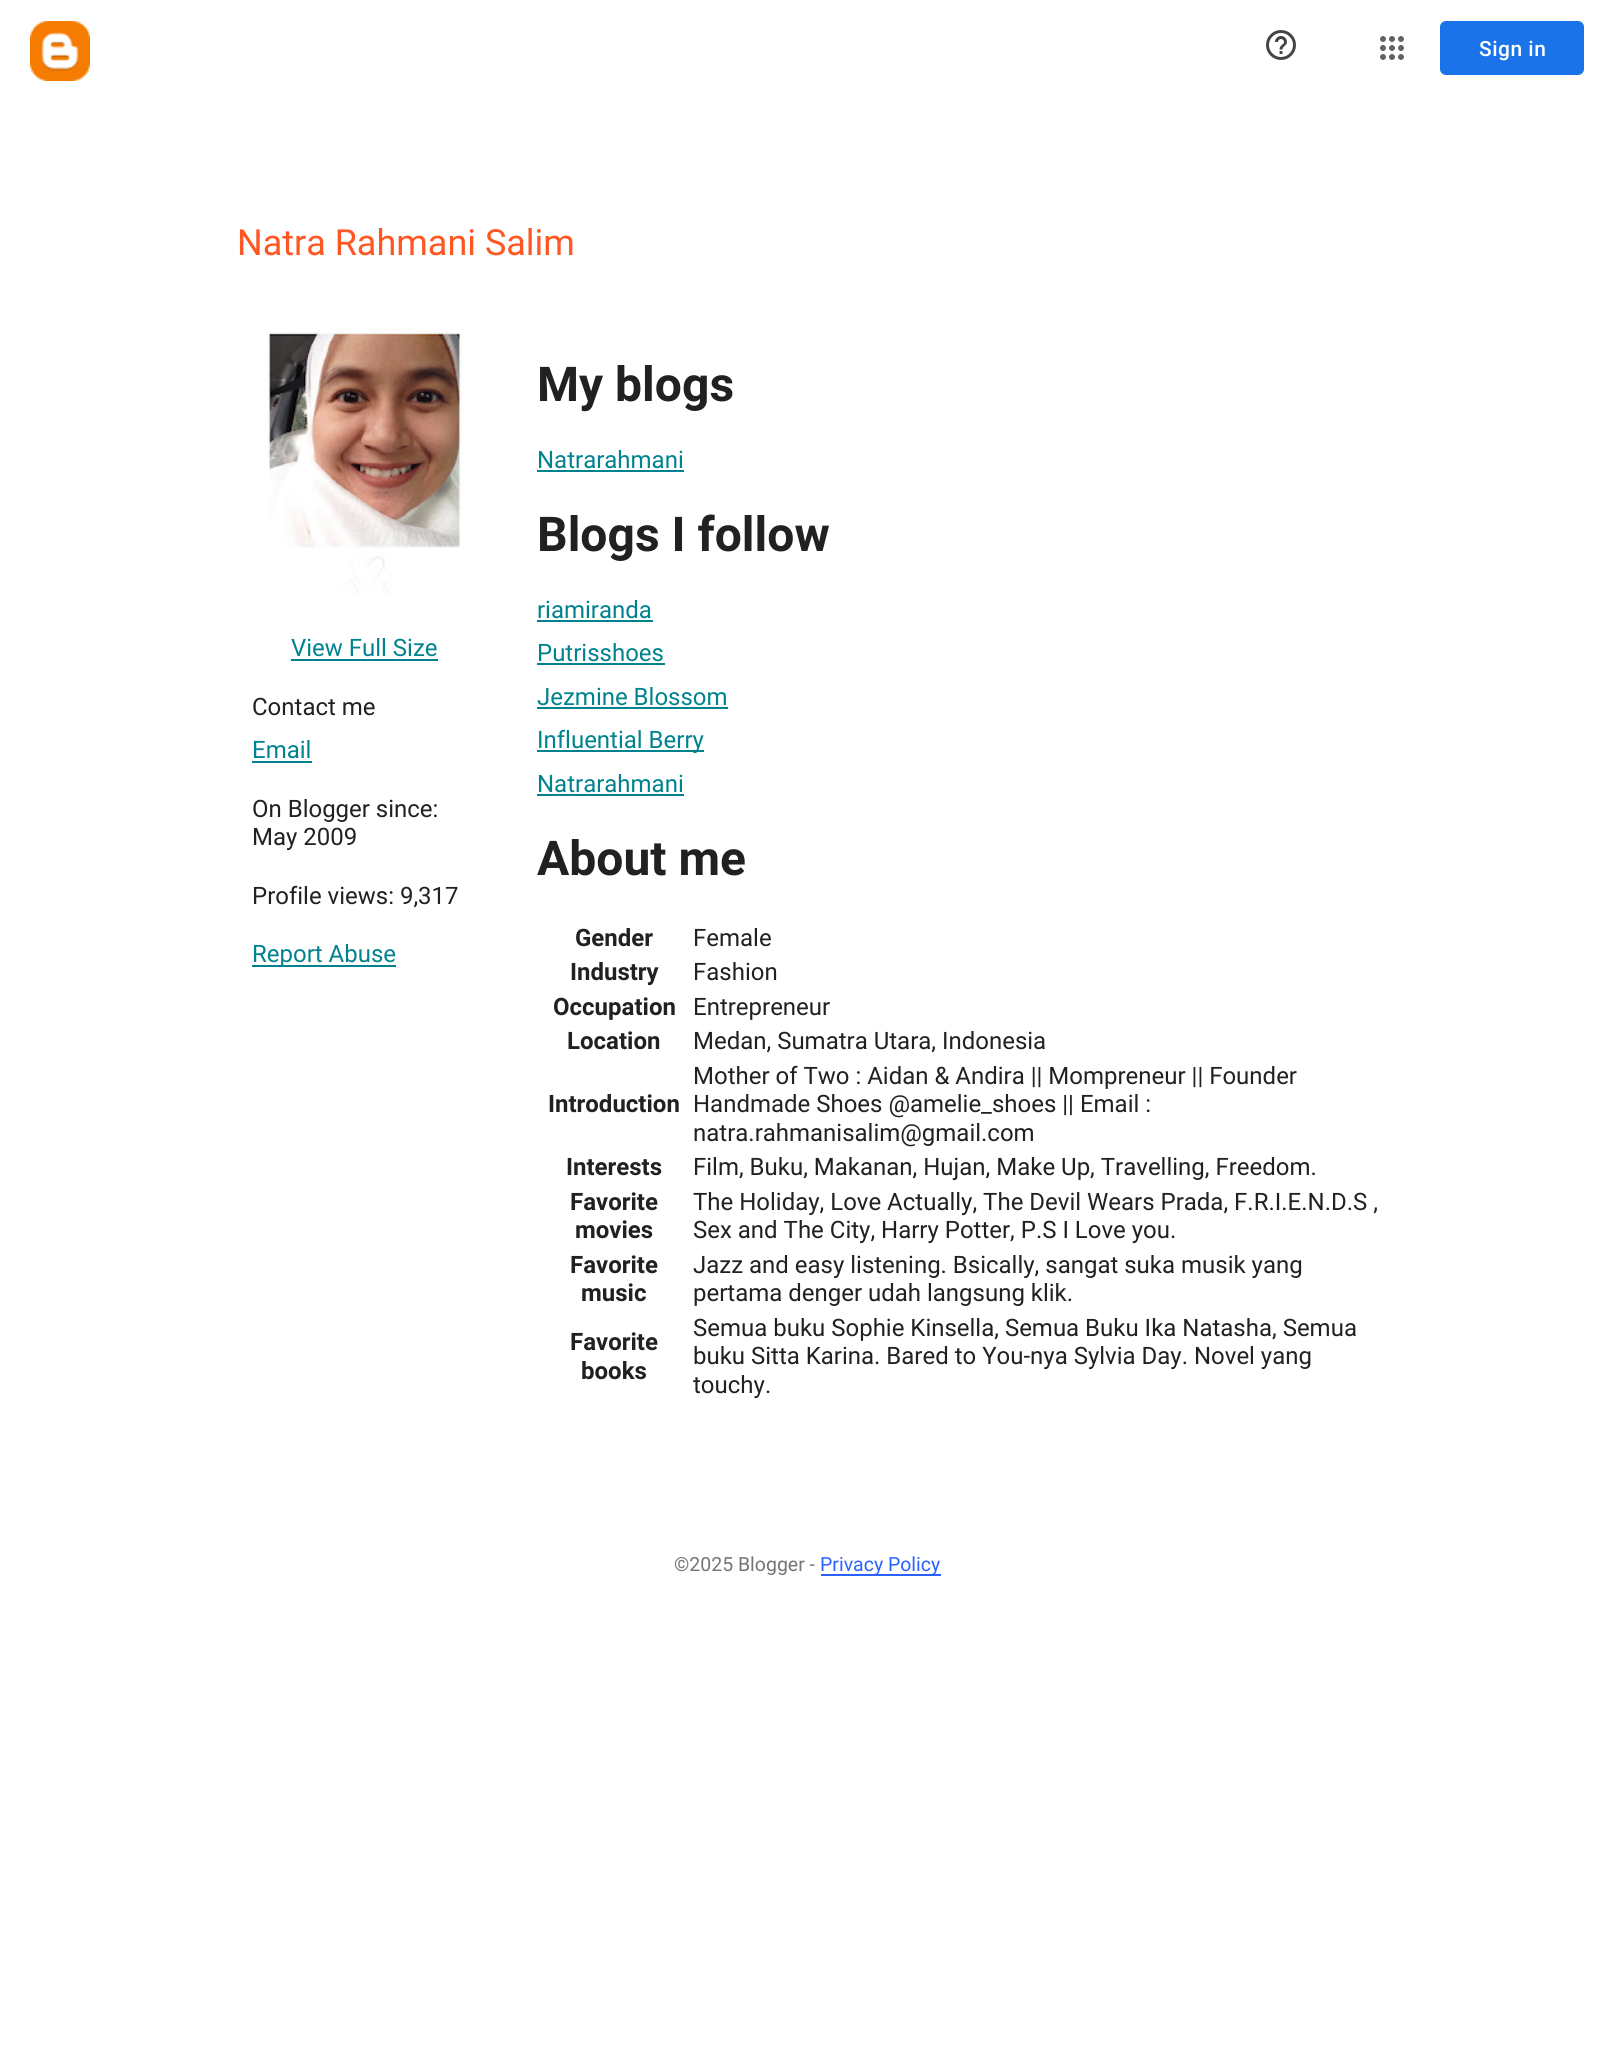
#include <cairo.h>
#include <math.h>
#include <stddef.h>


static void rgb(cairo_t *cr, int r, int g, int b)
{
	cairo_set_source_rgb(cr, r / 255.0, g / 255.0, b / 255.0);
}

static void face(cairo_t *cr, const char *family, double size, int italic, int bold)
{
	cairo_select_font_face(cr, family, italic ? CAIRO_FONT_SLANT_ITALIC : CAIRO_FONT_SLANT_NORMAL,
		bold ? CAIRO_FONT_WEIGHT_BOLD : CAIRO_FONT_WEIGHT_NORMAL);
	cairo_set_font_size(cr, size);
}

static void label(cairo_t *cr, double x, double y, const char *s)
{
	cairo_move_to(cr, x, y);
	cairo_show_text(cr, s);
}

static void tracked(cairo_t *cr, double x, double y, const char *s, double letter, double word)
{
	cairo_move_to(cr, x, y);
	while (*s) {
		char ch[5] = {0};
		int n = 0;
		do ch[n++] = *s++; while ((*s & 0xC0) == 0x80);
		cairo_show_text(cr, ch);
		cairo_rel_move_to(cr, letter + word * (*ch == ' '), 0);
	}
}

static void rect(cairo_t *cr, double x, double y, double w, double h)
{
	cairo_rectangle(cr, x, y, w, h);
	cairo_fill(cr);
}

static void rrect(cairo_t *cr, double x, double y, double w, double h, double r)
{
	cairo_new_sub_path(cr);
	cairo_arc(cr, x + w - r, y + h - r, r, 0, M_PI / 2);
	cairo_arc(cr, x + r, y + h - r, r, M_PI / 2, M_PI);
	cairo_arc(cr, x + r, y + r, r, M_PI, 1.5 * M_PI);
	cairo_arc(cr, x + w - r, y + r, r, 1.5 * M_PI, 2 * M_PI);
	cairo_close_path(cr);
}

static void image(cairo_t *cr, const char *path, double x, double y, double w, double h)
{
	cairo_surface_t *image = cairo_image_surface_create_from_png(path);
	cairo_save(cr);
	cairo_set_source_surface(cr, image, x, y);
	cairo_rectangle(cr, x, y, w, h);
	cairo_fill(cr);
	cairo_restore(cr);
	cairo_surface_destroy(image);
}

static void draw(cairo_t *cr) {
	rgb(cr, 255, 255, 255);
	cairo_paint(cr);
	image(cr, "image0.png", 30, 21, 60, 60);
	image(cr, "image1.png", 1266, 30, 30, 30);
	image(cr, "image2.png", 1380, 36, 24, 24);
	rgb(cr, 26, 115, 232);
	rrect(cr, 1440, 21, 144, 54, 6);
	cairo_fill(cr);
	face(cr, "Roboto Medium", 21, 0, 0);
	rgb(cr, 255, 255, 255);
	tracked(cr, 1479, 56, "Sign in", 0.5, 0);
	face(cr, "Roboto", 36, 0, 0);
	rgb(cr, 255, 87, 34);
	label(cr, 237, 255, "Natra Rahmani Salim");
	image(cr, "image3.png", 268, 332, 195, 262);
	face(cr, "Roboto", 24, 0, 0);
	rgb(cr, 0, 131, 143);
	label(cr, 291, 656, "View Full Size");
	rect(cr, 291, 659, 147, 2);
	rgb(cr, 33, 33, 33);
	label(cr, 252, 715, "Contact me");
	rgb(cr, 0, 131, 143);
	label(cr, 252, 758, "Email");
	rect(cr, 252, 761, 60, 2);
	rgb(cr, 33, 33, 33);
	label(cr, 252, 817, "On Blogger since:");
	label(cr, 252, 845, "May 2009");
	label(cr, 252, 904, "Profile views: 9,317");
	rgb(cr, 0, 131, 143);
	rect(cr, 252, 965, 144, 2);
	label(cr, 252, 962, "Report Abuse");
	face(cr, "Roboto", 48, 0, 1);
	rgb(cr, 33, 33, 33);
	label(cr, 537, 401, "My blogs");
	face(cr, "Roboto", 24, 0, 0);
	rgb(cr, 0, 131, 143);
	label(cr, 537, 468, "Natrarahmani");
	rect(cr, 537, 470, 147, 2);
	face(cr, "Roboto", 48, 0, 1);
	rgb(cr, 33, 33, 33);
	label(cr, 537, 551, "Blogs I follow");
	face(cr, "Roboto", 24, 0, 0);
	rgb(cr, 0, 131, 143);
	label(cr, 537, 618, "riamiranda");
	rect(cr, 537, 620, 116, 2);
	label(cr, 537, 661, "Putrisshoes");
	rect(cr, 537, 663, 128, 2);
	label(cr, 537, 705, "Jezmine Blossom");
	rect(cr, 537, 707, 191, 2);
	rect(cr, 537, 750, 167, 2);
	label(cr, 537, 748, "Influential Berry");
	label(cr, 537, 792, "Natrarahmani");
	rect(cr, 537, 794, 147, 2);
	face(cr, "Roboto", 48, 0, 1);
	rgb(cr, 33, 33, 33);
	label(cr, 537, 875, "About me");
	face(cr, "Roboto", 24, 0, 1);
	label(cr, 575, 946, "Gender");
	face(cr, "Roboto", 24, 0, 0);
	label(cr, 693, 946, "Female");
	face(cr, "Roboto", 24, 0, 1);
	label(cr, 570, 980, "Industry");
	face(cr, "Roboto", 24, 0, 0);
	label(cr, 693, 980, "Fashion");
	face(cr, "Roboto", 24, 0, 1);
	label(cr, 553, 1015, "Occupation");
	face(cr, "Roboto", 24, 0, 0);
	label(cr, 693, 1015, "Entrepreneur");
	face(cr, "Roboto", 24, 0, 1);
	label(cr, 567, 1049, "Location");
	face(cr, "Roboto", 24, 0, 0);
	label(cr, 693, 1049, "Medan, Sumatra Utara, Indonesia");
	face(cr, "Roboto", 24, 0, 1);
	label(cr, 548, 1112, "Introduction");
	face(cr, "Roboto", 24, 0, 0);
	label(cr, 693, 1084, "Mother of Two : Aidan & Andira || Mompreneur || Founder");
	label(cr, 693, 1112, "Handmade Shoes @amelie_shoes || Email :");
	label(cr, 693, 1141, "natra.rahmanisalim@gmail.com");
	face(cr, "Roboto", 24, 0, 1);
	label(cr, 566, 1175, "Interests");
	face(cr, "Roboto", 24, 0, 0);
	label(cr, 693, 1175, "Film, Buku, Makanan, Hujan, Make Up, Travelling, Freedom.");
	face(cr, "Roboto", 24, 0, 1);
	label(cr, 570, 1210, "Favorite");
	label(cr, 575, 1238, "movies");
	face(cr, "Roboto", 24, 0, 0);
	label(cr, 693, 1210, "The Holiday, Love Actually, The Devil Wears Prada, F.R.I.E.N.D.S ,");
	label(cr, 693, 1238, "Sex and The City, Harry Potter, P.S I Love you.");
	face(cr, "Roboto", 24, 0, 1);
	label(cr, 570, 1273, "Favorite");
	label(cr, 581, 1301, "music");
	face(cr, "Roboto", 24, 0, 0);
	label(cr, 693, 1273, "Jazz and easy listening. Bsically, sangat suka musik yang");
	label(cr, 693, 1301, "pertama denger udah langsung klik.");
	face(cr, "Roboto", 24, 0, 1);
	label(cr, 570, 1350, "Favorite");
	label(cr, 581, 1379, "books");
	face(cr, "Roboto", 24, 0, 0);
	label(cr, 693, 1336, "Semua buku Sophie Kinsella, Semua Buku Ika Natasha, Semua");
	label(cr, 693, 1364, "buku Sitta Karina. Bared to You-nya Sylvia Day. Novel yang");
	label(cr, 693, 1393, "touchy.");
	face(cr, "Roboto", 19.5, 0, 0);
	rgb(cr, 117, 117, 117);
	label(cr, 674, 1571, "©2025 Blogger -");
	rgb(cr, 41, 98, 255);
	rect(cr, 821, 1574, 120, 2);
	label(cr, 820, 1571, "Privacy Policy");
}

int main(void) {
	cairo_surface_t *surface = cairo_image_surface_create(CAIRO_FORMAT_RGB24, 1613, 2069);
	cairo_t *cr = cairo_create(surface);
	cairo_font_options_t *options = cairo_font_options_create();
	cairo_font_options_set_hint_metrics(options, CAIRO_HINT_METRICS_OFF);
	cairo_font_options_set_hint_style(options, CAIRO_HINT_STYLE_NONE);
	cairo_set_font_options(cr, options);
	cairo_set_miter_limit(cr, 4);
	draw(cr);
	cairo_surface_write_to_png(surface, "render.png");
	cairo_font_options_destroy(options);
	cairo_destroy(cr);
	cairo_surface_destroy(surface);
	return 0;
}
